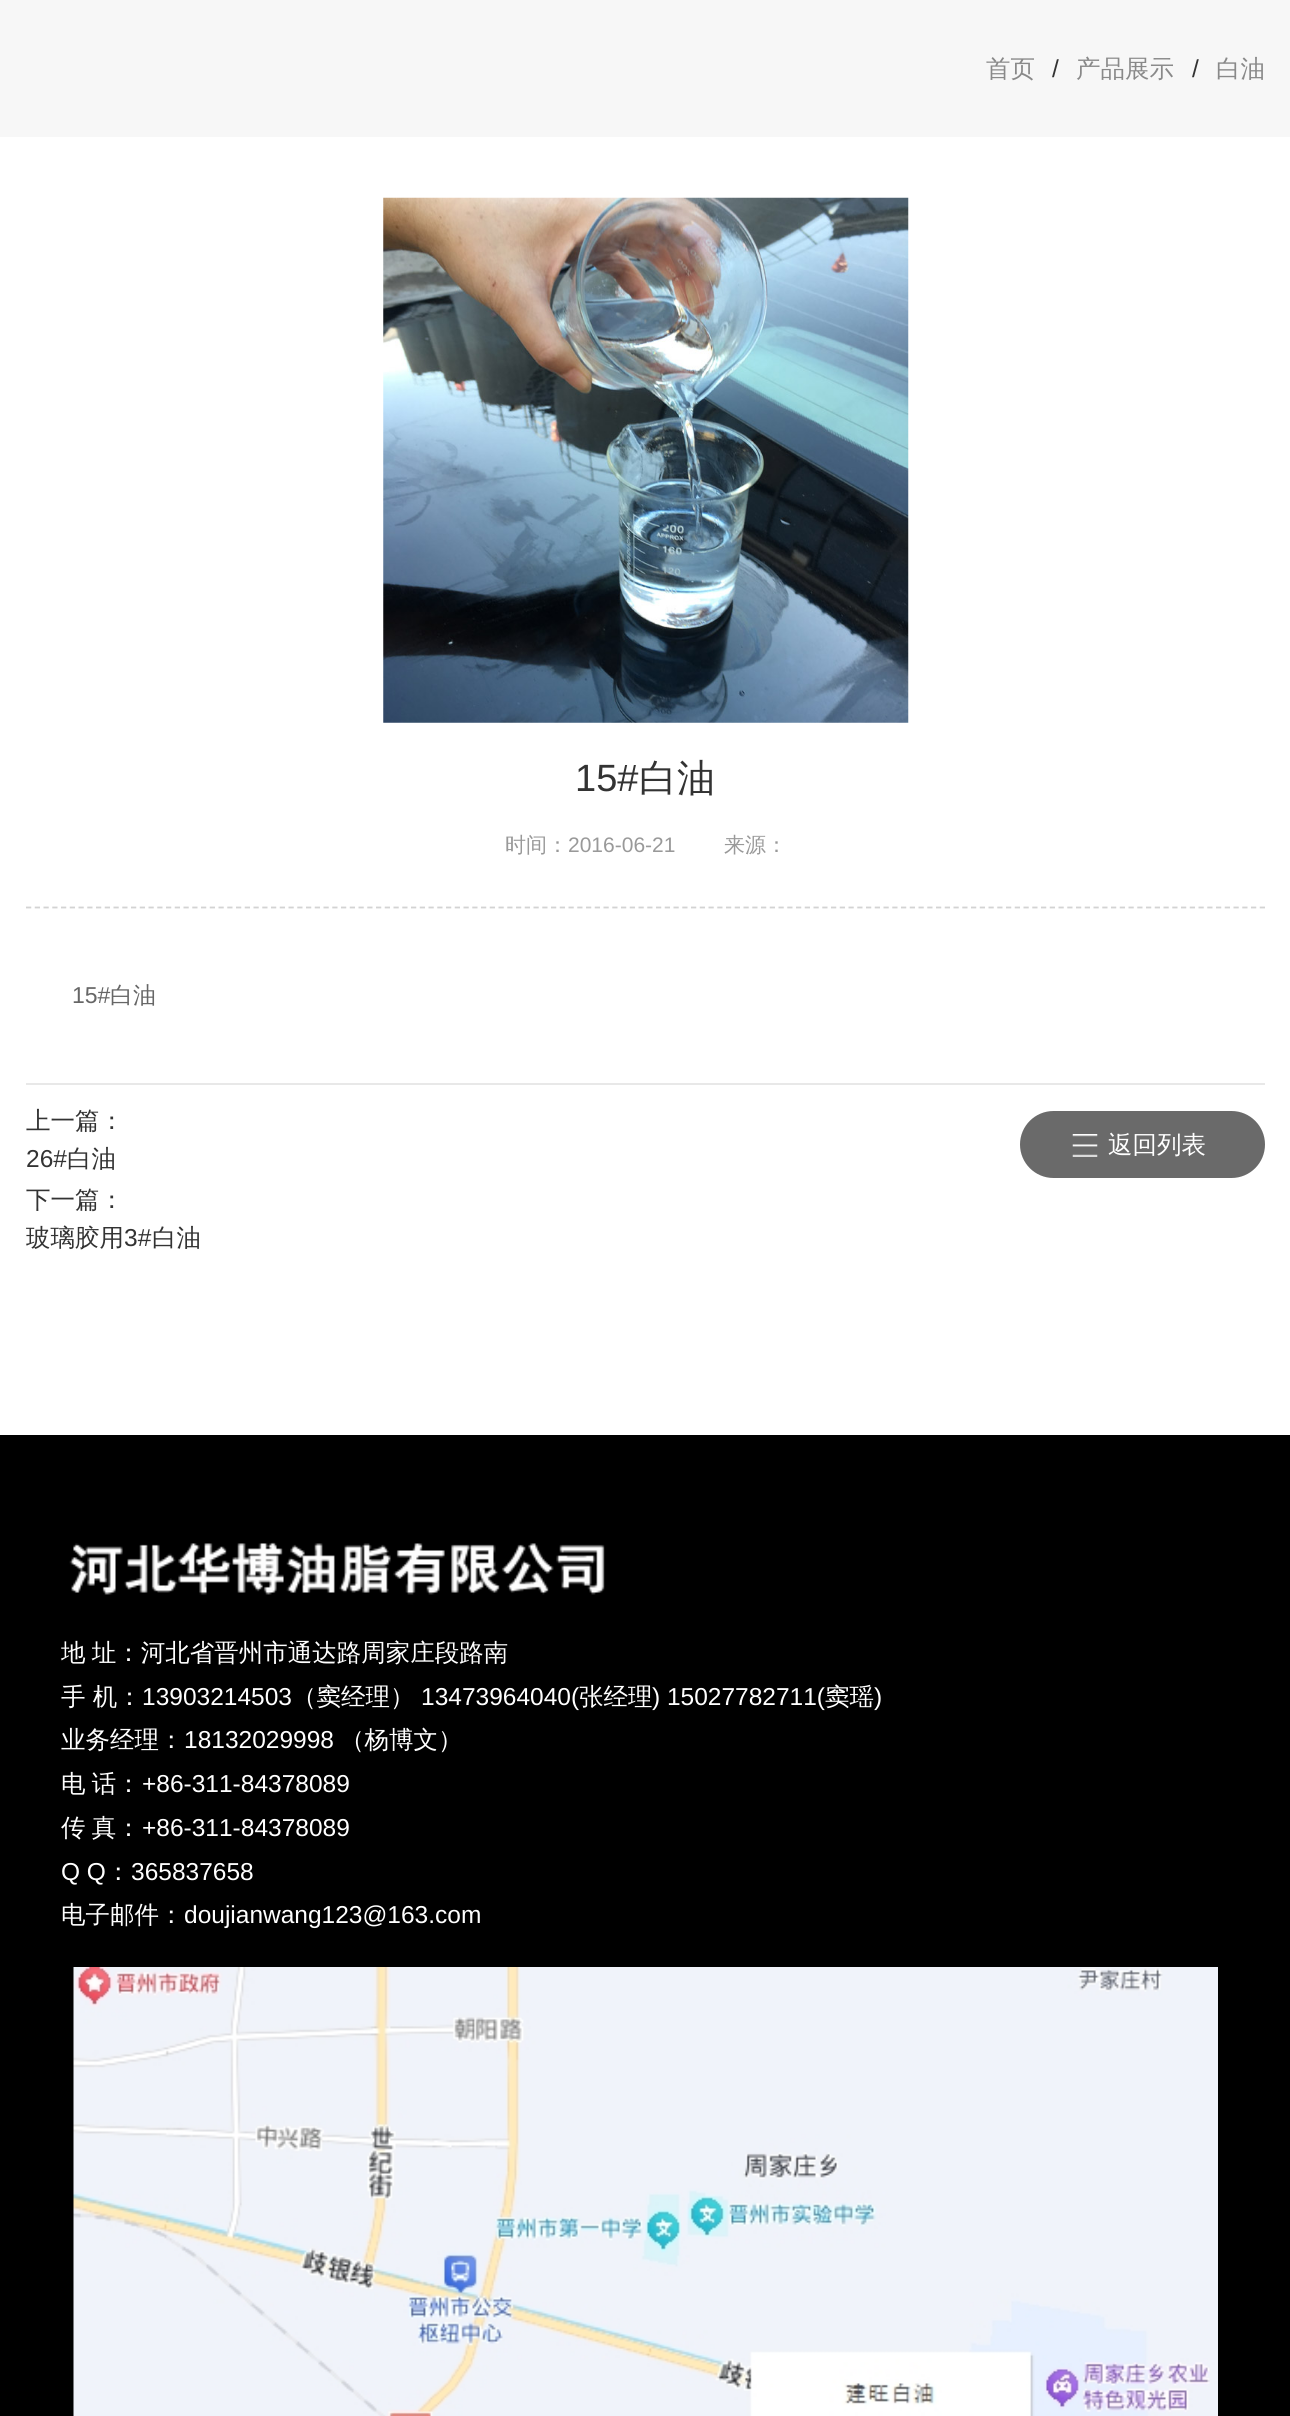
#include <cairo.h>
#include <math.h>
#include <stddef.h>


static void rgb(cairo_t *cr, int r, int g, int b)
{
	cairo_set_source_rgb(cr, r / 255.0, g / 255.0, b / 255.0);
}

static void face(cairo_t *cr, const char *family, double size, int italic, int bold)
{
	cairo_select_font_face(cr, family, italic ? CAIRO_FONT_SLANT_ITALIC : CAIRO_FONT_SLANT_NORMAL,
		bold ? CAIRO_FONT_WEIGHT_BOLD : CAIRO_FONT_WEIGHT_NORMAL);
	cairo_set_font_size(cr, size);
}

static void label(cairo_t *cr, double x, double y, const char *s)
{
	cairo_move_to(cr, x, y);
	cairo_show_text(cr, s);
}

static void tracked(cairo_t *cr, double x, double y, const char *s, double letter, double word)
{
	cairo_move_to(cr, x, y);
	while (*s) {
		char ch[5] = {0};
		int n = 0;
		do ch[n++] = *s++; while ((*s & 0xC0) == 0x80);
		cairo_show_text(cr, ch);
		cairo_rel_move_to(cr, letter + word * (*ch == ' '), 0);
	}
}

static void rect(cairo_t *cr, double x, double y, double w, double h)
{
	cairo_rectangle(cr, x, y, w, h);
	cairo_fill(cr);
}

static void rrect(cairo_t *cr, double x, double y, double w, double h, double r)
{
	cairo_new_sub_path(cr);
	cairo_arc(cr, x + w - r, y + h - r, r, 0, M_PI / 2);
	cairo_arc(cr, x + r, y + h - r, r, M_PI / 2, M_PI);
	cairo_arc(cr, x + r, y + r, r, M_PI, 1.5 * M_PI);
	cairo_arc(cr, x + w - r, y + r, r, 1.5 * M_PI, 2 * M_PI);
	cairo_close_path(cr);
}

static void image(cairo_t *cr, const char *path, double x, double y, double w, double h)
{
	cairo_surface_t *image = cairo_image_surface_create_from_png(path);
	cairo_save(cr);
	cairo_set_source_surface(cr, image, x, y);
	cairo_rectangle(cr, x, y, w, h);
	cairo_fill(cr);
	cairo_restore(cr);
	cairo_surface_destroy(image);
}

static void draw(cairo_t *cr) {
	rgb(cr, 255, 255, 255);
	cairo_paint(cr);
	rgb(cr, 247, 247, 247);
	rect(cr, 0, 0, 1290, 137);
	face(cr, "WenQuanYi Zen Hei Medium", 24.5, 0, 0);
	rgb(cr, 137, 137, 137);
	label(cr, 986, 77, "首页");
	face(cr, "Liberation Sans", 24.5, 0, 0);
	rgb(cr, 51, 51, 51);
	label(cr, 1052, 77, "/");
	face(cr, "WenQuanYi Zen Hei Medium", 24.5, 0, 0);
	rgb(cr, 137, 137, 137);
	label(cr, 1076, 77, "产品展示");
	face(cr, "Liberation Sans", 24.5, 0, 0);
	rgb(cr, 51, 51, 51);
	label(cr, 1192, 77, "/");
	face(cr, "WenQuanYi Zen Hei Medium", 24.5, 0, 0);
	rgb(cr, 137, 137, 137);
	label(cr, 1216, 77, "白油");
	cairo_new_path(cr);
	cairo_move_to(cr, 26, 907.5);
	cairo_line_to(cr, 1265, 907.5);
	rgb(cr, 211, 211, 211);
	cairo_set_line_width(cr, 1.8);
	cairo_set_dash(cr, (double[]){5.25, 3.5}, 2, 0);
	cairo_stroke(cr);
	image(cr, "image0.png", 383, 197, 526, 526);
	face(cr, "Liberation Sans", 38, 0, 0);
	rgb(cr, 51, 51, 51);
	label(cr, 575, 791, "15#");
	face(cr, "WenQuanYi Zen Hei Medium", 38, 0, 0);
	label(cr, 639, 791, "白油");
	face(cr, "WenQuanYi Zen Hei Medium", 21, 0, 0);
	rgb(cr, 153, 153, 153);
	label(cr, 505, 852, "时间：");
	face(cr, "Liberation Sans", 21, 0, 0);
	label(cr, 568, 852, "2016-06-21");
	face(cr, "WenQuanYi Zen Hei Medium", 21, 0, 0);
	label(cr, 724, 852, "来源：");
	rgb(cr, 232, 232, 232);
	rect(cr, 26, 1083, 1239, 2);
	face(cr, "Liberation Sans", 23, 0, 0);
	rgb(cr, 102, 102, 102);
	label(cr, 72, 1003, "15#");
	face(cr, "WenQuanYi Zen Hei Medium", 23, 0, 0);
	label(cr, 110, 1003, "白油");
	face(cr, "WenQuanYi Zen Hei Medium", 24.5, 0, 0);
	rgb(cr, 51, 51, 51);
	label(cr, 26, 1129, "上一篇：");
	face(cr, "Liberation Sans", 24.5, 0, 0);
	label(cr, 26, 1167, "26#");
	face(cr, "WenQuanYi Zen Hei Medium", 24.5, 0, 0);
	label(cr, 67, 1167, "白油");
	label(cr, 26, 1208, "下一篇：");
	label(cr, 26, 1246, "玻璃胶用");
	face(cr, "Liberation Sans", 24.5, 0, 0);
	label(cr, 124, 1246, "3#");
	face(cr, "WenQuanYi Zen Hei Medium", 24.5, 0, 0);
	label(cr, 152, 1246, "白油");
	rgb(cr, 106, 106, 106);
	rrect(cr, 1020, 1111, 245, 67, 33.5);
	cairo_fill(cr);
	image(cr, "image1.png", 1072, 1134, 26, 23);
	rgb(cr, 255, 255, 255);
	label(cr, 1108, 1153, "返回列表");
	rgb(cr, 0, 0, 0);
	rect(cr, 0, 1435, 1290, 981);
	image(cr, "image2.png", 69, 1542, 536, 53);
	rgb(cr, 255, 255, 255);
	tracked(cr, 61, 1661, "地 址：河北省晋州市通达路周家庄段路南", 0, -1);
	label(cr, 61, 1705, "手 机：");
	face(cr, "Liberation Sans", 24.5, 0, 0);
	label(cr, 142, 1705, "13903214503");
	face(cr, "WenQuanYi Zen Hei Medium", 24.5, 0, 0);
	label(cr, 292, 1705, "（窦经理）");
	face(cr, "Liberation Sans", 24.5, 0, 0);
	label(cr, 421, 1705, "13473964040(");
	face(cr, "WenQuanYi Zen Hei Medium", 24.5, 0, 0);
	label(cr, 579, 1705, "张经理");
	face(cr, "Liberation Sans", 24.5, 0, 0);
	label(cr, 652, 1705, ") 15027782711(");
	face(cr, "WenQuanYi Zen Hei Medium", 24.5, 0, 0);
	label(cr, 825, 1705, "窦瑶");
	face(cr, "Liberation Sans", 24.5, 0, 0);
	label(cr, 874, 1705, ")");
	face(cr, "WenQuanYi Zen Hei Medium", 24.5, 0, 0);
	label(cr, 61, 1748, "业务经理：");
	face(cr, "Liberation Sans", 24.5, 0, 0);
	label(cr, 184, 1748, "18132029998");
	face(cr, "WenQuanYi Zen Hei Medium", 24.5, 0, 0);
	label(cr, 340, 1748, "（杨博文）");
	tracked(cr, 61, 1792, "电 话：", 0, -1);
	face(cr, "Liberation Sans", 24.5, 0, 0);
	label(cr, 142, 1792, "+86-311-84378089");
	face(cr, "WenQuanYi Zen Hei Medium", 24.5, 0, 0);
	tracked(cr, 61, 1836, "传 真：", 0, -1);
	face(cr, "Liberation Sans", 24.5, 0, 0);
	label(cr, 142, 1836, "+86-311-84378089");
	label(cr, 61, 1880, "Q Q");
	face(cr, "WenQuanYi Zen Hei Medium", 24.5, 0, 0);
	label(cr, 106, 1880, "：");
	face(cr, "Liberation Sans", 24.5, 0, 0);
	label(cr, 131, 1880, "365837658");
	face(cr, "WenQuanYi Zen Hei Medium", 24.5, 0, 0);
	label(cr, 61, 1923, "电子邮件：");
	face(cr, "Liberation Sans", 24.5, 0, 0);
	label(cr, 184, 1923, "doujianwang123@163.com");
	image(cr, "image3.png", 73, 1967, 1145, 449);
}

int main(void) {
	cairo_surface_t *surface = cairo_image_surface_create(CAIRO_FORMAT_RGB24, 1290, 2416);
	cairo_t *cr = cairo_create(surface);
	cairo_font_options_t *options = cairo_font_options_create();
	cairo_font_options_set_hint_metrics(options, CAIRO_HINT_METRICS_OFF);
	cairo_font_options_set_hint_style(options, CAIRO_HINT_STYLE_NONE);
	cairo_set_font_options(cr, options);
	cairo_set_miter_limit(cr, 4);
	draw(cr);
	cairo_surface_write_to_png(surface, "render.png");
	cairo_font_options_destroy(options);
	cairo_destroy(cr);
	cairo_surface_destroy(surface);
	return 0;
}
